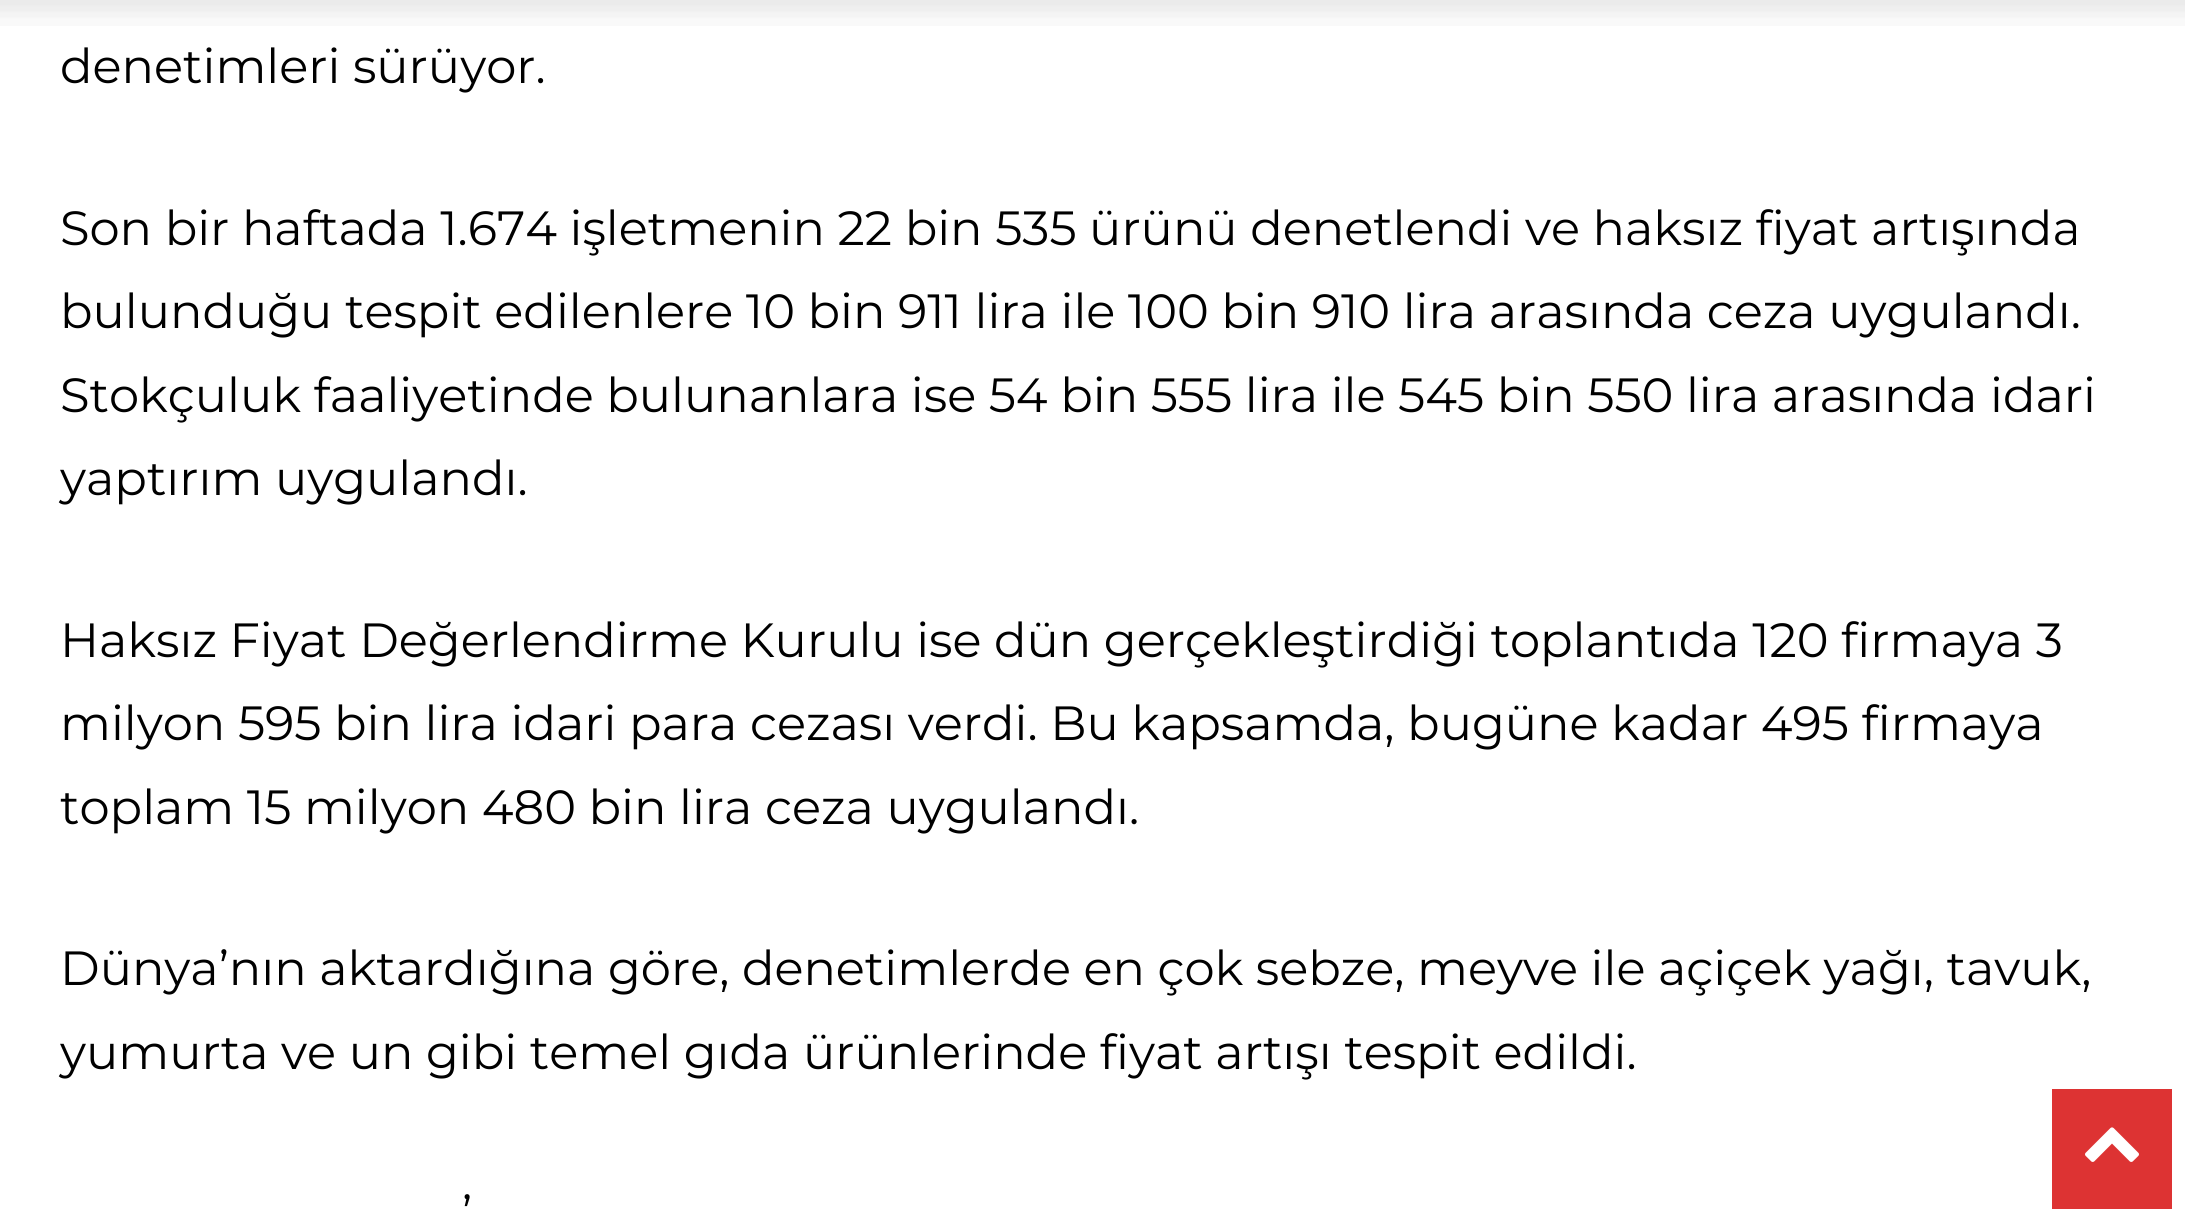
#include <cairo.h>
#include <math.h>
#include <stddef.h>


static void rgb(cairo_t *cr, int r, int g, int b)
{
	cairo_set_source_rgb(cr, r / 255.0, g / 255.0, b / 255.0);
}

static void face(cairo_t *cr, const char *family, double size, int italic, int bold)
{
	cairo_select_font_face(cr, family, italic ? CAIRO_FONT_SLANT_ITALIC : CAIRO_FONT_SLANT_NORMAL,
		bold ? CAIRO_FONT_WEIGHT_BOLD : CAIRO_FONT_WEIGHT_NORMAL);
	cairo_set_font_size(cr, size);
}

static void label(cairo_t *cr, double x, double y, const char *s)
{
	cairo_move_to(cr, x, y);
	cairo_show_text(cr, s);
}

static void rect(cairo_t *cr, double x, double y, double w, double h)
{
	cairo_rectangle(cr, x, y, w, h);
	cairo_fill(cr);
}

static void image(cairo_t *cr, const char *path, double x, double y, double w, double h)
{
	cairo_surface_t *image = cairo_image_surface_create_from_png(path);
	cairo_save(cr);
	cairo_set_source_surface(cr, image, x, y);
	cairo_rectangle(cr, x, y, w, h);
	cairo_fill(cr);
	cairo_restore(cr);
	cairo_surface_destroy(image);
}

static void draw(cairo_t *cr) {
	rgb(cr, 255, 255, 255);
	cairo_paint(cr);
	image(cr, "image0.png", 0, 0, 2185, 26);
	face(cr, "Montserrat Thin", 48, 0, 0);
	rgb(cr, 0, 0, 0);
	label(cr, 60, 83, "denetimleri sürüyor.");
	label(cr, 60, 245, "Son bir haftada 1.674 işletmenin 22 bin 535 ürünü denetlendi ve haksız fiyat artışında");
	label(cr, 60, 328, "bulunduğu tespit edilenlere 10 bin 911 lira ile 100 bin 910 lira arasında ceza uygulandı.");
	label(cr, 60, 412, "Stokçuluk faaliyetinde bulunanlara ise 54 bin 555 lira ile 545 bin 550 lira arasında idari");
	label(cr, 60, 495, "yaptırım uygulandı.");
	label(cr, 60, 657, "Haksız Fiyat Değerlendirme Kurulu ise dün gerçekleştirdiği toplantıda 120 firmaya 3");
	label(cr, 60, 740, "milyon 595 bin lira idari para cezası verdi. Bu kapsamda, bugüne kadar 495 firmaya");
	label(cr, 60, 824, "toplam 15 milyon 480 bin lira ceza uygulandı.");
	label(cr, 60, 985, "Dünya’nın aktardığına göre, denetimlerde en çok sebze, meyve ile açiçek yağı, tavuk,");
	label(cr, 60, 1069, "yumurta ve un gibi temel gıda ürünlerinde fiyat artışı tespit edildi.");
	label(cr, 462, 1230, "’");
	rgb(cr, 221, 51, 51);
	rect(cr, 2052, 1089, 120, 120);
	image(cr, "image1.png", 2085, 1127, 54, 35);
}

int main(void) {
	cairo_surface_t *surface = cairo_image_surface_create(CAIRO_FORMAT_RGB24, 2185, 1219);
	cairo_t *cr = cairo_create(surface);
	cairo_font_options_t *options = cairo_font_options_create();
	cairo_font_options_set_hint_metrics(options, CAIRO_HINT_METRICS_OFF);
	cairo_font_options_set_hint_style(options, CAIRO_HINT_STYLE_NONE);
	cairo_set_font_options(cr, options);
	cairo_set_miter_limit(cr, 4);
	draw(cr);
	cairo_surface_write_to_png(surface, "render.png");
	cairo_font_options_destroy(options);
	cairo_destroy(cr);
	cairo_surface_destroy(surface);
	return 0;
}
